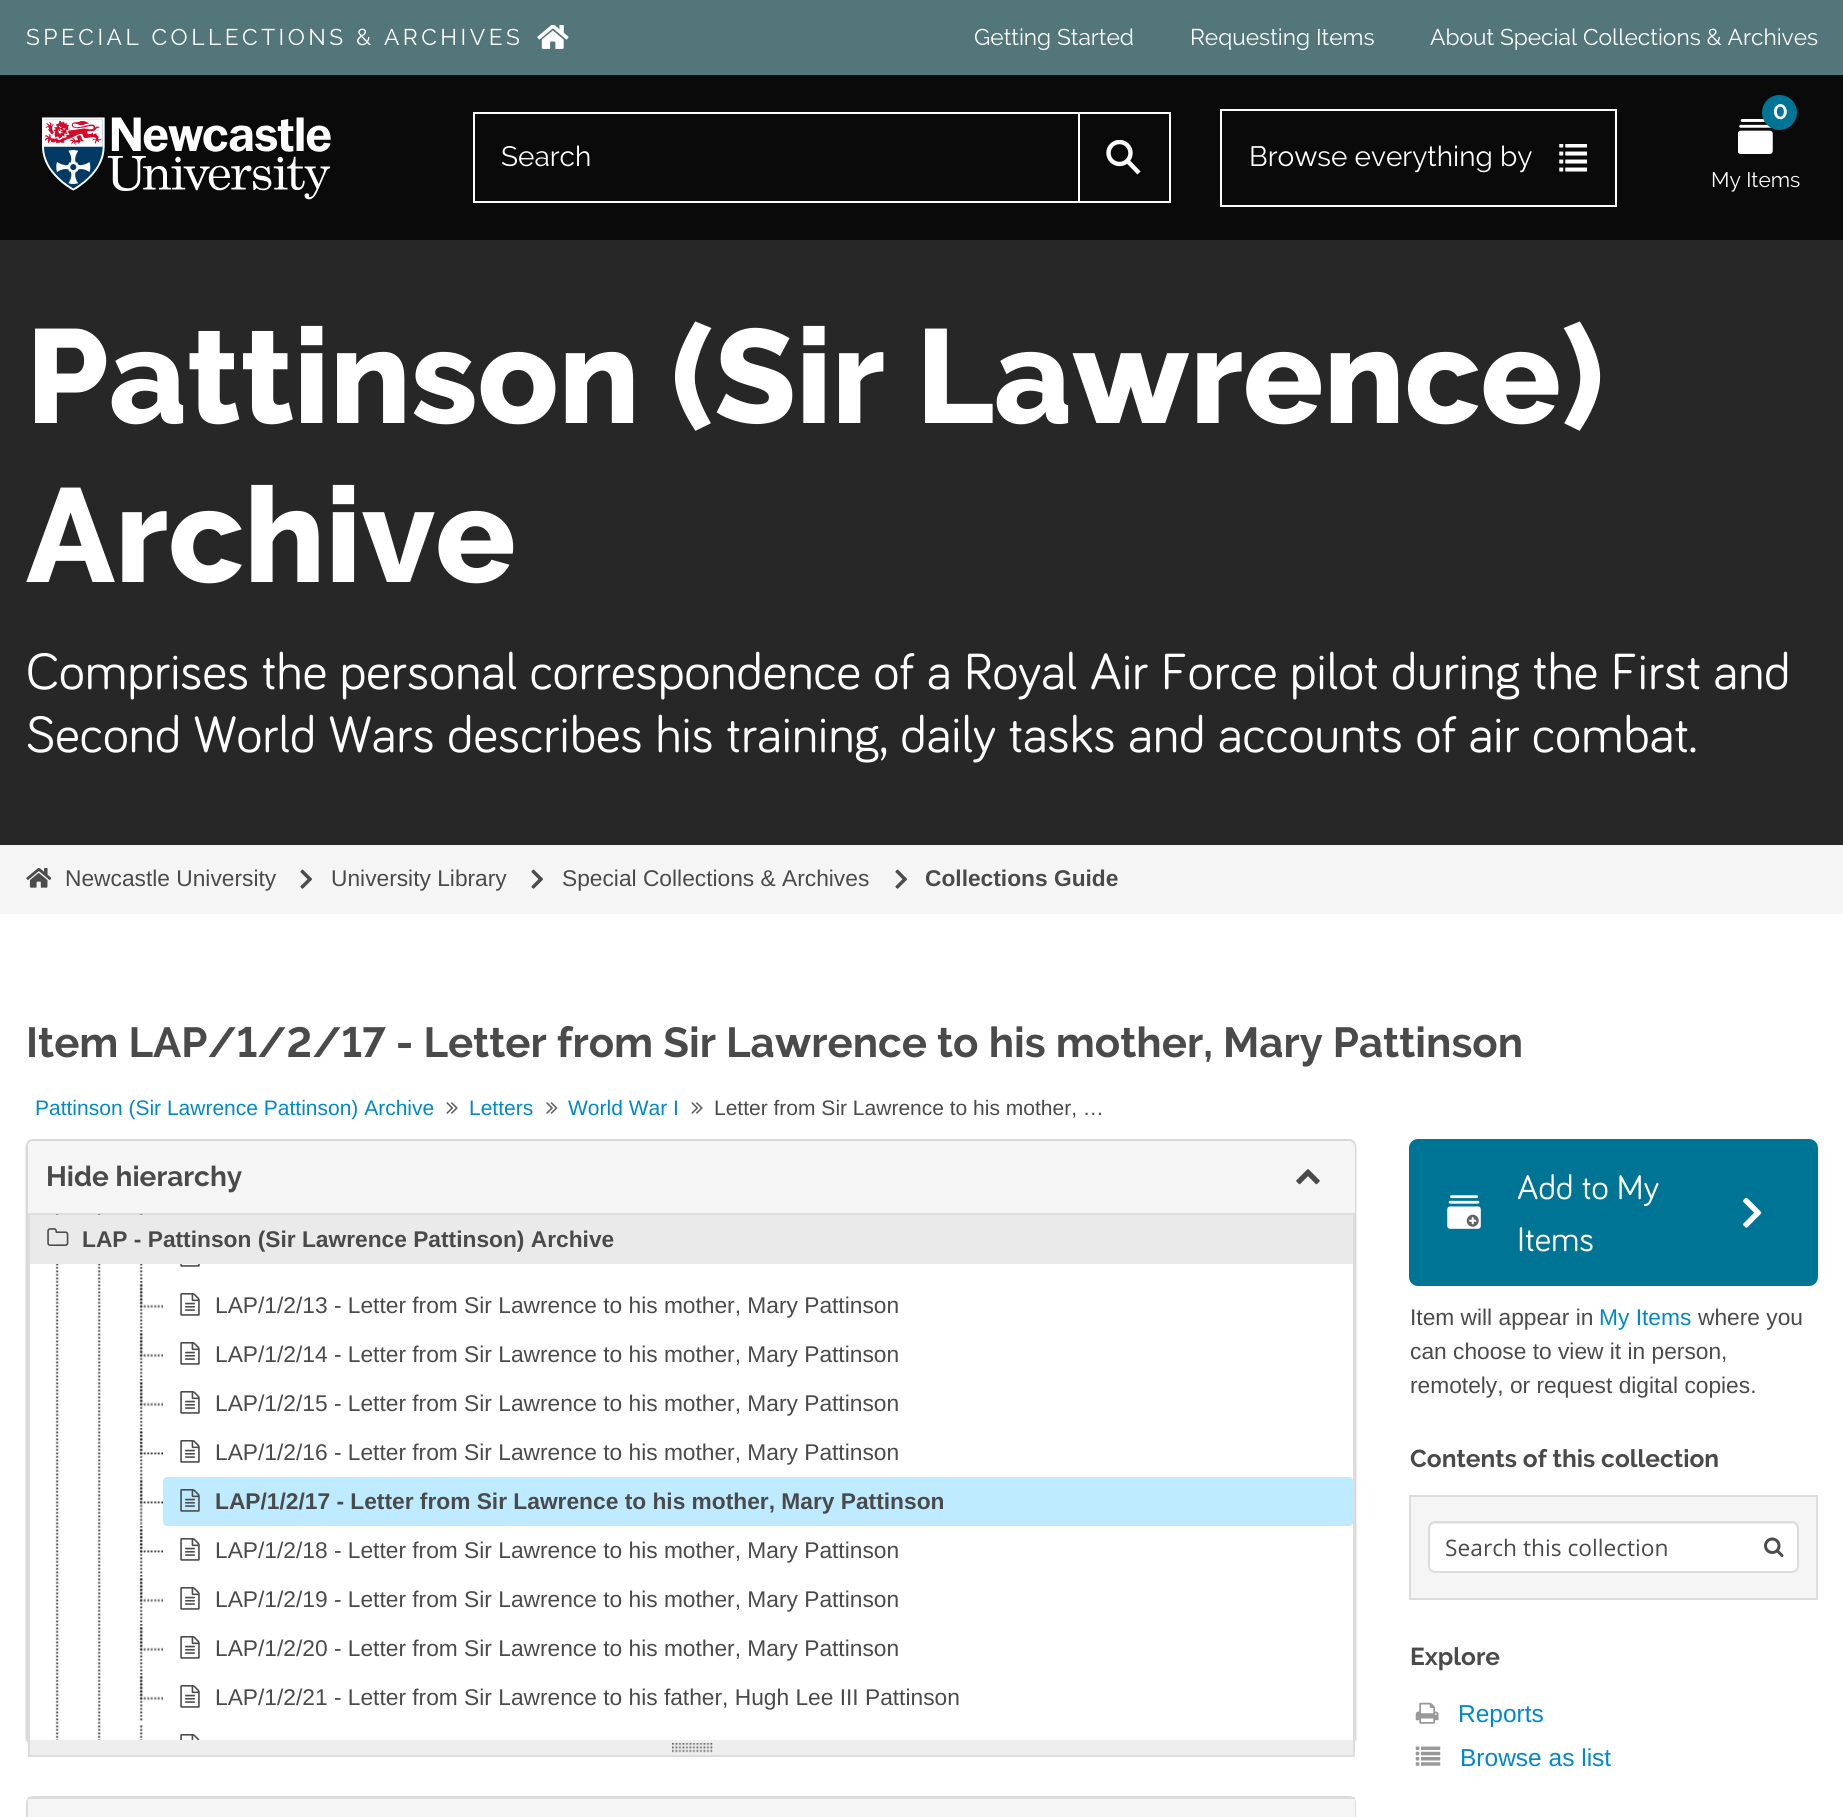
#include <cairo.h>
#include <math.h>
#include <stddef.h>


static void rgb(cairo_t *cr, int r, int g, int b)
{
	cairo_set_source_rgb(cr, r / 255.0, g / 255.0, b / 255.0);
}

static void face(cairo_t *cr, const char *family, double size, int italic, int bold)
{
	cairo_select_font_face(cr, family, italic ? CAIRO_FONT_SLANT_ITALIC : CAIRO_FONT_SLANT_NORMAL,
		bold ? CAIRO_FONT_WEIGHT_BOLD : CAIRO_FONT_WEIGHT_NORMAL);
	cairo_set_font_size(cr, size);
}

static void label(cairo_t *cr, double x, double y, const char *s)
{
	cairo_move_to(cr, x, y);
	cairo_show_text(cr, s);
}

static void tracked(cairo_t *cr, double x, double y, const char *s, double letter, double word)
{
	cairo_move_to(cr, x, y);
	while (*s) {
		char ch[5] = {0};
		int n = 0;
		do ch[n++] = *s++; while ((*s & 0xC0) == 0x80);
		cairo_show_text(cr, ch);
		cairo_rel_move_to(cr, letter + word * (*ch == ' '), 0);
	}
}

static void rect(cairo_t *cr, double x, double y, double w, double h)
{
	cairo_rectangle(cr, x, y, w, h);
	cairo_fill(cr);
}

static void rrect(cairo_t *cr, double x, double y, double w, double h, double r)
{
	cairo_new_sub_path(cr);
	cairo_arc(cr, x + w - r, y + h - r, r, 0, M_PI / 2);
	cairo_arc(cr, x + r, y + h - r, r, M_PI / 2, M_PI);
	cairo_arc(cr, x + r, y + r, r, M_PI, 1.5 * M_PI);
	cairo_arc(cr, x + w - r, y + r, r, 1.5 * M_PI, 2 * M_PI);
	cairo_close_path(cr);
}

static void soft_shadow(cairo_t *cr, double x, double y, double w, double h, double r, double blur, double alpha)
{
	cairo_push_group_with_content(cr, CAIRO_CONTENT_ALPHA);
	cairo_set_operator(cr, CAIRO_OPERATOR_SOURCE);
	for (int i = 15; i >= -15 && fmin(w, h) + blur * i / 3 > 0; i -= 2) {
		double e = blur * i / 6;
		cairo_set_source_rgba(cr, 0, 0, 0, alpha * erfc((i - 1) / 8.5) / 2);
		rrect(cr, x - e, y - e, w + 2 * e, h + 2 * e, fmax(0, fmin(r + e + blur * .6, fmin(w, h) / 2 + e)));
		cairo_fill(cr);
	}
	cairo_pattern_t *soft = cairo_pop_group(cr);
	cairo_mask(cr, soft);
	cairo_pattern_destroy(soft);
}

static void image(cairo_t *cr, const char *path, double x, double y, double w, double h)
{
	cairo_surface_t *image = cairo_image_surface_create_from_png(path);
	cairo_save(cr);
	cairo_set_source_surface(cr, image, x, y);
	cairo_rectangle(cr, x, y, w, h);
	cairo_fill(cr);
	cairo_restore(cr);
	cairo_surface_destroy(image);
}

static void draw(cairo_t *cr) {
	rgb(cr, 255, 255, 255);
	cairo_paint(cr);
	rgb(cr, 83, 118, 122);
	rect(cr, 0, 0, 1843, 75);
	face(cr, "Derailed", 22.75, 0, 0);
	rgb(cr, 255, 255, 255);
	tracked(cr, 26, 45, "SPECIAL COLLECTIONS & ARCHIVES", 3.5, 0);
	image(cr, "image0.png", 537, 25, 32, 24);
	label(cr, 974, 45, "Getting Started");
	label(cr, 1190, 45, "Requesting Items");
	label(cr, 1430, 45, "About Special Collections & Archives");
	rgb(cr, 10, 10, 10);
	rect(cr, 0, 75, 1843, 165);
	image(cr, "image1.png", 42, 117, 289, 83);
	cairo_rectangle(cr, 474, 113, 605, 89);
	rgb(cr, 255, 255, 255);
	cairo_stroke(cr);
	face(cr, "Derailed", 28, 0, 0);
	label(cr, 501, 166, "Search");
	rect(cr, 1080, 112, 91, 2);
	rect(cr, 1169, 112, 2, 91);
	rect(cr, 1080, 201, 91, 2);
	cairo_save(cr);
	cairo_rectangle(cr, 1106, 140, 35, 35);
	cairo_clip(cr);
	cairo_arc(cr, 1119.5, 153, 11, 0, 2 * M_PI);
	cairo_set_line_width(cr, 4.4);
	cairo_stroke(cr);
	cairo_restore(cr);
	cairo_new_path(cr);
	cairo_move_to(cr, 1126, 159.5);
	cairo_line_to(cr, 1139, 173);
	cairo_set_line_width(cr, 4.4);
	cairo_stroke(cr);
	cairo_rectangle(cr, 1221, 110, 395, 96);
	cairo_set_line_width(cr, 2);
	cairo_stroke(cr);
	label(cr, 1249, 166, "Browse everything by");
	image(cr, "image2.png", 1559, 144, 28, 28);
	image(cr, "image3.png", 1738, 119, 35, 35);
	rgb(cr, 0, 116, 148);
	cairo_arc(cr, 1779.5, 112.5, 17.5, 0, 2 * M_PI);
	cairo_fill(cr);
	face(cr, "Derailed", 21, 0, 1);
	rgb(cr, 255, 255, 255);
	label(cr, 1773, 119, "0");
	face(cr, "Derailed", 21, 0, 0);
	label(cr, 1711, 187, "My Items");
	rgb(cr, 39, 39, 39);
	rect(cr, 0, 240, 1843, 605);
	face(cr, "Derailed ExtraBold", 133, 0, 0);
	rgb(cr, 255, 255, 255);
	label(cr, 26, 423, "Pattinson (Sir Lawrence)");
	label(cr, 26, 582, "Archive");
	face(cr, "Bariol", 52.5, 0, 0);
	label(cr, 26, 689, "Comprises the personal correspondence of a Royal Air Force pilot during the First and");
	label(cr, 26, 752, "Second World Wars describes his training, daily tasks and accounts of air combat.");
	rgb(cr, 245, 245, 245);
	rect(cr, 0, 845, 1843, 69);
	image(cr, "image4.png", 26, 868, 25, 20);
	face(cr, "Liberation Sans", 22.75, 0, 0);
	rgb(cr, 74, 74, 74);
	label(cr, 65, 886, "Newcastle University");
	image(cr, "image5.png", 300, 869, 12, 20);
	label(cr, 331, 886, "University Library");
	image(cr, "image5.png", 531, 869, 12, 20);
	label(cr, 562, 886, "Special Collections & Archives");
	image(cr, "image5.png", 895, 869, 12, 20);
	face(cr, "Liberation Sans", 22.75, 0, 1);
	label(cr, 925, 886, "Collections Guide");
	face(cr, "Derailed", 42, 0, 1);
	label(cr, 26, 1057, "Item LAP/1/2/17 - Letter from Sir Lawrence to his mother, Mary Pattinson");
	face(cr, "Liberation Sans", 21, 0, 0);
	rgb(cr, 0, 136, 204);
	label(cr, 35, 1115, "Pattinson (Sir Lawrence Pattinson) Archive");
	image(cr, "image6.png", 446, 1102, 12, 12);
	label(cr, 469, 1115, "Letters");
	image(cr, "image7.png", 546, 1102, 12, 12);
	label(cr, 568, 1115, "World War I");
	image(cr, "image6.png", 691, 1102, 12, 12);
	rgb(cr, 74, 74, 74);
	label(cr, 714, 1115, "Letter from Sir Lawrence to his mother, …");
	rgb(cr, 0, 0, 0);
	soft_shadow(cr, 26, 1141, 1330, 604, 7, 1, 0.2);
	rgb(cr, 255, 255, 255);
	rrect(cr, 27, 1140, 1328, 602, 6);
	cairo_fill_preserve(cr);
	rgb(cr, 217, 217, 217);
	cairo_stroke(cr);
	rgb(cr, 245, 245, 245);
	cairo_new_path(cr);
	cairo_move_to(cr, 35, 1141);
	cairo_line_to(cr, 1348, 1141);
	cairo_curve_to(cr, 1352, 1141, 1355, 1144, 1355, 1148);
	cairo_line_to(cr, 1355, 1213);
	cairo_line_to(cr, 28, 1213);
	cairo_line_to(cr, 28, 1148);
	cairo_curve_to(cr, 28, 1144, 31, 1141, 35, 1141);
	cairo_close_path(cr);
	cairo_fill(cr);
	face(cr, "Derailed", 28, 0, 1);
	rgb(cr, 74, 74, 74);
	label(cr, 46, 1186, "Hide hierarchy");
	image(cr, "image8.png", 1296, 1169, 24, 16);
	cairo_rectangle(cr, 29, 1214, 1325, 526);
	rgb(cr, 221, 221, 221);
	cairo_stroke(cr);
	rgb(cr, 238, 238, 238);
	rect(cr, 30, 1740, 1323, 15);
	image(cr, "image24.png", 672, 1743, 41, 10);
	cairo_rectangle(cr, 29, 1739, 1325, 17);
	rgb(cr, 221, 221, 221);
	cairo_stroke(cr);
	rgb(cr, 255, 255, 255);
	rect(cr, 30, 1738, 1323, 2);
	image(cr, "image10.png", 55, 1214, 4, 526);
	image(cr, "image10.png", 97, 1214, 4, 526);
	rgb(cr, 234, 234, 234);
	rect(cr, 30, 1215, 1323, 49);
	image(cr, "image9.png", 47, 1228, 22, 18);
	face(cr, "Liberation Sans", 22.75, 0, 1);
	rgb(cr, 74, 74, 74);
	label(cr, 82, 1247, "LAP - Pattinson (Sir Lawrence Pattinson) Archive");
	image(cr, "image11.png", 139, 1214, 4, 1);
	image(cr, "image12.png", 139, 1264, 4, 16);
	image(cr, "image13.png", 180, 1264, 20, 3);
	image(cr, "image14.png", 139, 1281, 4, 48);
	image(cr, "image15.png", 139, 1284, 24, 25);
	image(cr, "image16.png", 180, 1293, 20, 23);
	face(cr, "Liberation Sans", 22.75, 0, 0);
	label(cr, 215, 1313, "LAP/1/2/13 - Letter from Sir Lawrence to his mother, Mary Pattinson");
	image(cr, "image14.png", 139, 1330, 4, 48);
	image(cr, "image15.png", 139, 1333, 24, 25);
	image(cr, "image16.png", 180, 1342, 20, 23);
	label(cr, 215, 1362, "LAP/1/2/14 - Letter from Sir Lawrence to his mother, Mary Pattinson");
	image(cr, "image14.png", 139, 1379, 4, 48);
	image(cr, "image15.png", 139, 1382, 24, 25);
	image(cr, "image16.png", 180, 1391, 20, 23);
	label(cr, 215, 1411, "LAP/1/2/15 - Letter from Sir Lawrence to his mother, Mary Pattinson");
	image(cr, "image14.png", 139, 1428, 4, 48);
	image(cr, "image17.png", 139, 1431, 24, 24);
	image(cr, "image16.png", 180, 1440, 20, 23);
	label(cr, 215, 1460, "LAP/1/2/16 - Letter from Sir Lawrence to his mother, Mary Pattinson");
	image(cr, "image18.png", 139, 1476, 4, 50);
	image(cr, "image19.png", 139, 1480, 24, 24);
	rgb(cr, 190, 235, 255);
	rrect(cr, 163, 1477, 1190, 49, 4);
	cairo_fill(cr);
	image(cr, "image20.png", 180, 1489, 20, 23);
	face(cr, "Liberation Sans", 22.75, 0, 1);
	rgb(cr, 74, 74, 74);
	label(cr, 215, 1509, "LAP/1/2/17 - Letter from Sir Lawrence to his mother, Mary Pattinson");
	image(cr, "image14.png", 139, 1526, 4, 48);
	image(cr, "image21.png", 139, 1529, 24, 24);
	image(cr, "image16.png", 180, 1538, 20, 23);
	face(cr, "Liberation Sans", 22.75, 0, 0);
	label(cr, 215, 1558, "LAP/1/2/18 - Letter from Sir Lawrence to his mother, Mary Pattinson");
	image(cr, "image14.png", 139, 1575, 4, 48);
	image(cr, "image15.png", 139, 1578, 24, 25);
	image(cr, "image16.png", 180, 1587, 20, 23);
	label(cr, 215, 1607, "LAP/1/2/19 - Letter from Sir Lawrence to his mother, Mary Pattinson");
	image(cr, "image14.png", 139, 1624, 4, 48);
	image(cr, "image15.png", 139, 1627, 24, 25);
	image(cr, "image16.png", 180, 1636, 20, 23);
	label(cr, 215, 1656, "LAP/1/2/20 - Letter from Sir Lawrence to his mother, Mary Pattinson");
	image(cr, "image14.png", 139, 1673, 4, 48);
	image(cr, "image15.png", 139, 1676, 24, 25);
	image(cr, "image16.png", 180, 1685, 20, 23);
	label(cr, 215, 1705, "LAP/1/2/21 - Letter from Sir Lawrence to his father, Hugh Lee III Pattinson");
	image(cr, "image22.png", 139, 1725, 4, 15);
	image(cr, "image23.png", 180, 1734, 20, 6);
	rrect(cr, 27, 1797, 1328, 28, 6);
	rgb(cr, 220, 220, 220);
	cairo_stroke(cr);
	rgb(cr, 245, 245, 245);
	rect(cr, 28, 1799, 1327, 18);
	rgb(cr, 220, 220, 220);
	rect(cr, 28, 1797, 1327, 2);
	rgb(cr, 0, 116, 148);
	rrect(cr, 1411, 1141, 405, 143, 7);
	cairo_fill_preserve(cr);
	cairo_set_line_width(cr, 4);
	cairo_stroke(cr);
	face(cr, "Bariol", 35, 0, 0);
	rgb(cr, 255, 255, 255);
	label(cr, 1517, 1199, "Add to My");
	image(cr, "image25.png", 1447, 1195, 34, 34);
	image(cr, "image26.png", 1743, 1197, 19, 31);
	label(cr, 1517, 1251, "Items");
	face(cr, "Liberation Sans", 22.75, 0, 0);
	rgb(cr, 74, 74, 74);
	label(cr, 1410, 1325, "Item will appear in");
	rgb(cr, 0, 136, 204);
	label(cr, 1599, 1325, "My Items");
	rgb(cr, 74, 74, 74);
	label(cr, 1698, 1325, "where you");
	label(cr, 1410, 1359, "can choose to view it in person,");
	label(cr, 1410, 1393, "remotely, or request digital copies.");
	face(cr, "Derailed", 24.5, 0, 1);
	label(cr, 1410, 1467, "Contents of this collection");
	rgb(cr, 245, 245, 245);
	cairo_rectangle(cr, 1410, 1496, 407, 103);
	cairo_fill_preserve(cr);
	rgb(cr, 220, 220, 220);
	cairo_set_line_width(cr, 2);
	cairo_stroke(cr);
	rgb(cr, 255, 255, 255);
	rrect(cr, 1428, 1521, 371, 52, 7);
	cairo_fill(cr);
	rgb(cr, 236, 236, 236);
	cairo_new_path(cr);
	cairo_move_to(cr, 1435, 1524);
	cairo_line_to(cr, 1792, 1524);
	cairo_curve_to(cr, 1795, 1524, 1797, 1527, 1797, 1530);
	cairo_curve_to(cr, 1797, 1527, 1796, 1523, 1792, 1523);
	cairo_line_to(cr, 1435, 1523);
	cairo_curve_to(cr, 1431, 1523, 1430, 1527, 1430, 1530);
	cairo_curve_to(cr, 1430, 1527, 1432, 1524, 1435, 1524);
	cairo_close_path(cr);
	cairo_fill(cr);
	rrect(cr, 1429, 1522, 369, 50, 6);
	rgb(cr, 220, 220, 220);
	cairo_stroke(cr);
	face(cr, "Open Sans", 22.75, 0, 0);
	rgb(cr, 74, 74, 74);
	label(cr, 1445, 1556, "Search this collection");
	image(cr, "image27.png", 1764, 1537, 20, 20);
	face(cr, "Derailed", 24.5, 0, 1);
	label(cr, 1410, 1665, "Explore");
	image(cr, "image28.png", 1415, 1702, 24, 22);
	face(cr, "Liberation Sans", 24.5, 0, 0);
	rgb(cr, 0, 136, 204);
	label(cr, 1458, 1722, "Reports");
	image(cr, "image29.png", 1415, 1746, 26, 20);
	label(cr, 1460, 1766, "Browse as list");
}

int main(void) {
	cairo_surface_t *surface = cairo_image_surface_create(CAIRO_FORMAT_RGB24, 1843, 1817);
	cairo_t *cr = cairo_create(surface);
	cairo_font_options_t *options = cairo_font_options_create();
	cairo_font_options_set_hint_metrics(options, CAIRO_HINT_METRICS_OFF);
	cairo_font_options_set_hint_style(options, CAIRO_HINT_STYLE_NONE);
	cairo_set_font_options(cr, options);
	cairo_set_miter_limit(cr, 4);
	draw(cr);
	cairo_surface_write_to_png(surface, "render.png");
	cairo_font_options_destroy(options);
	cairo_destroy(cr);
	cairo_surface_destroy(surface);
	return 0;
}
